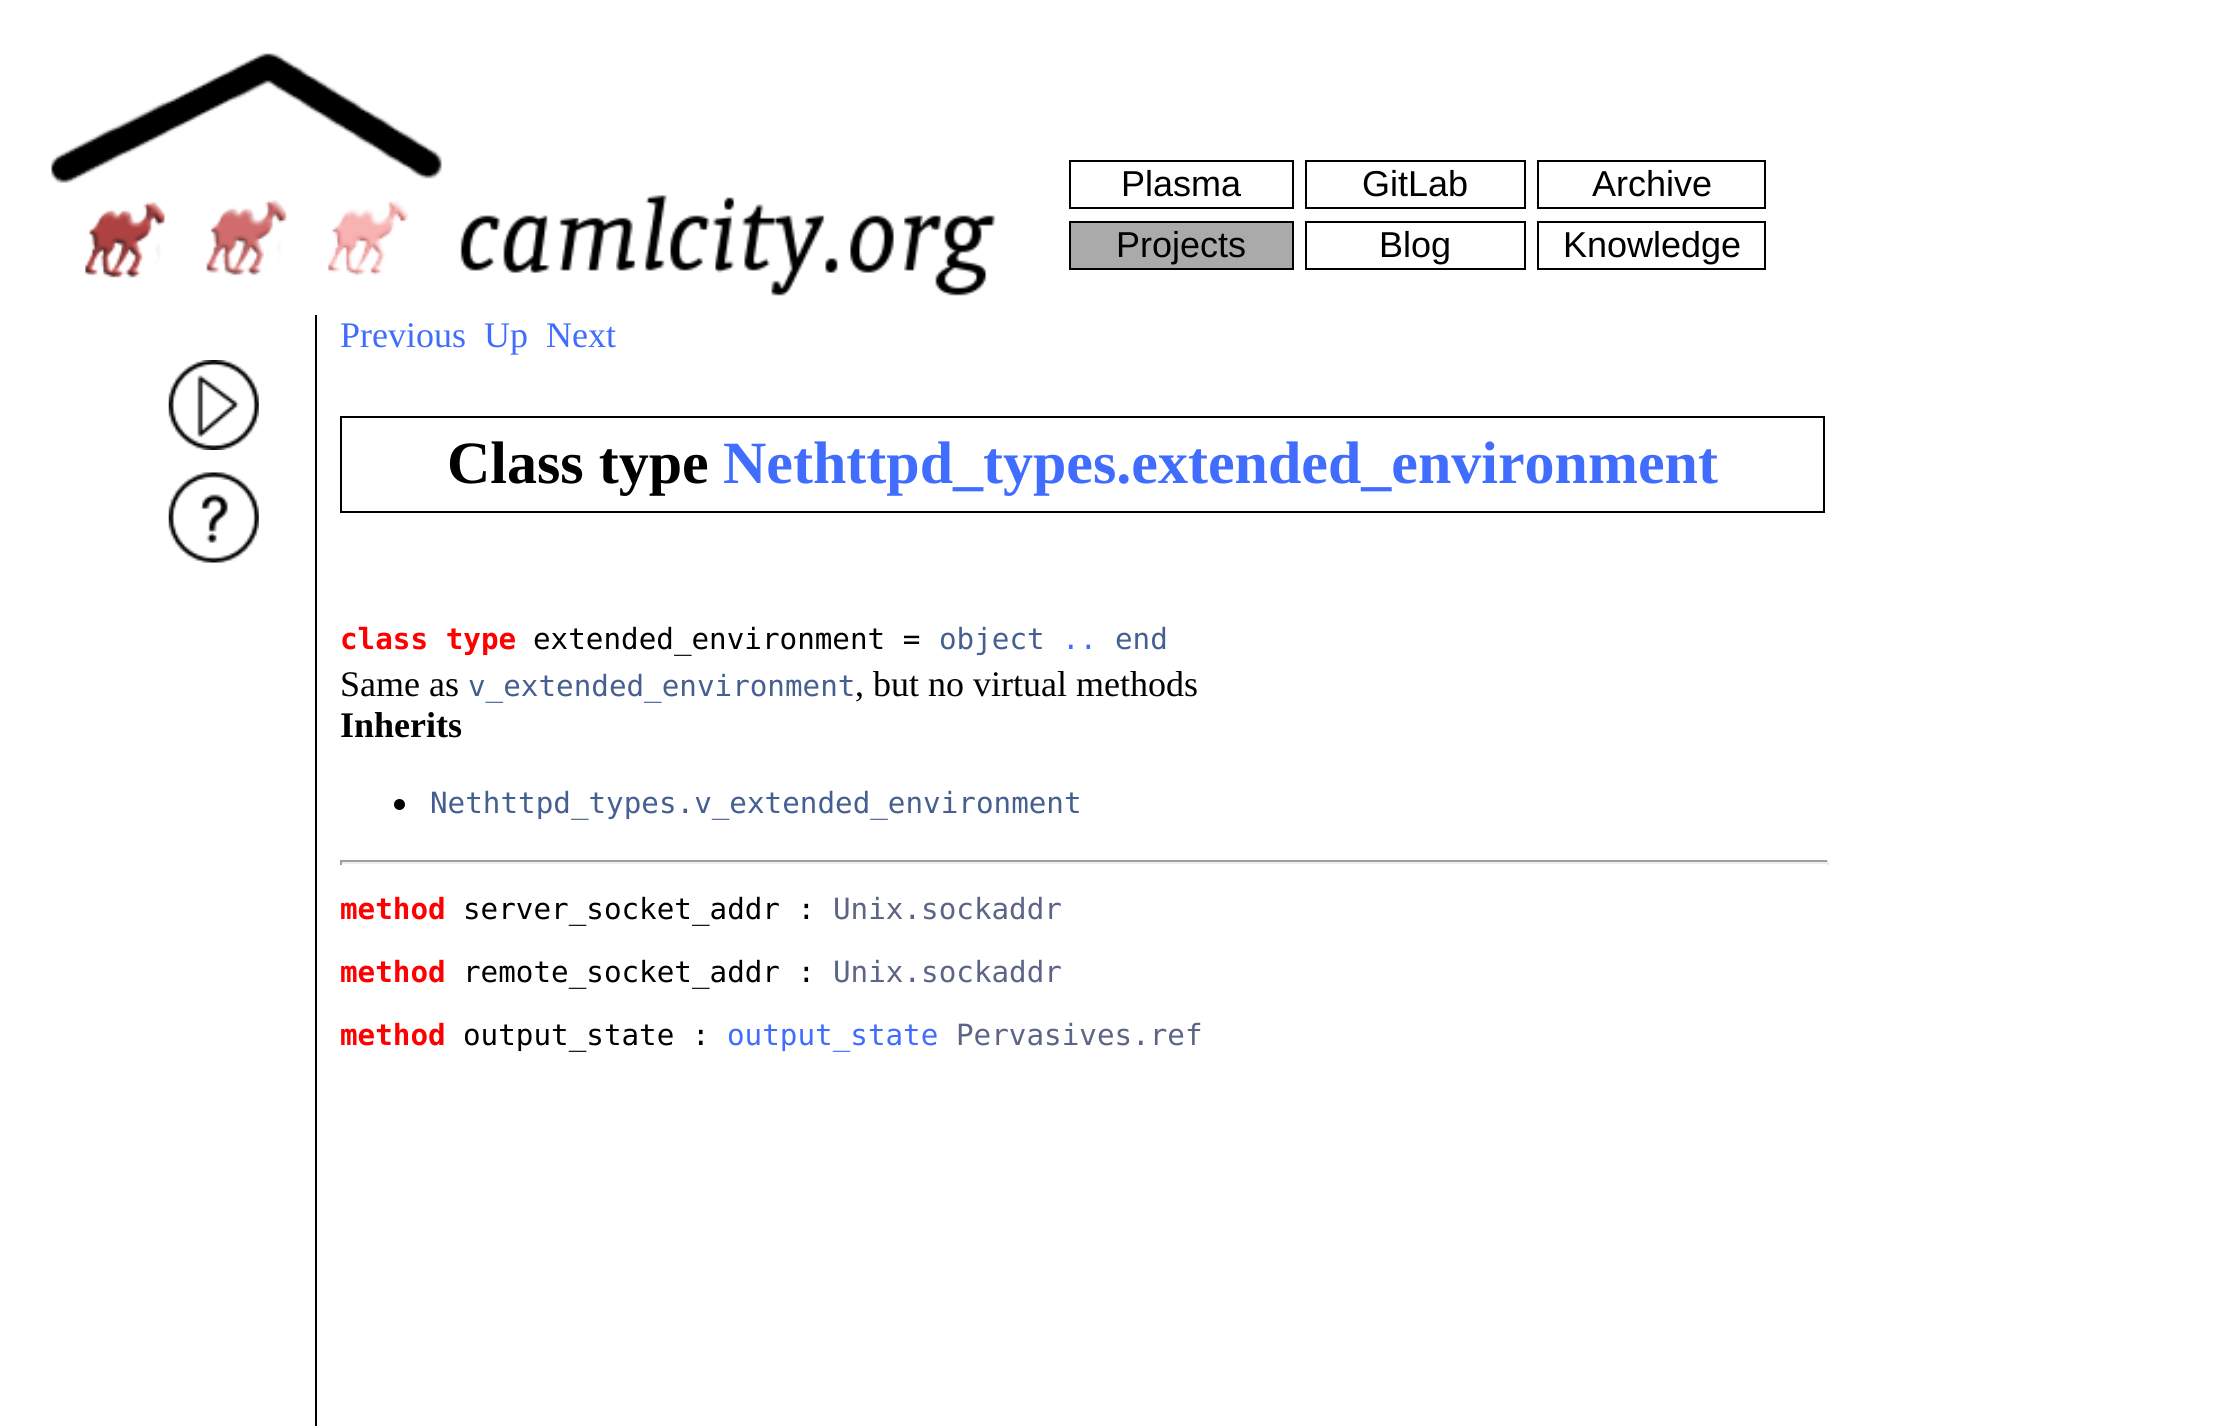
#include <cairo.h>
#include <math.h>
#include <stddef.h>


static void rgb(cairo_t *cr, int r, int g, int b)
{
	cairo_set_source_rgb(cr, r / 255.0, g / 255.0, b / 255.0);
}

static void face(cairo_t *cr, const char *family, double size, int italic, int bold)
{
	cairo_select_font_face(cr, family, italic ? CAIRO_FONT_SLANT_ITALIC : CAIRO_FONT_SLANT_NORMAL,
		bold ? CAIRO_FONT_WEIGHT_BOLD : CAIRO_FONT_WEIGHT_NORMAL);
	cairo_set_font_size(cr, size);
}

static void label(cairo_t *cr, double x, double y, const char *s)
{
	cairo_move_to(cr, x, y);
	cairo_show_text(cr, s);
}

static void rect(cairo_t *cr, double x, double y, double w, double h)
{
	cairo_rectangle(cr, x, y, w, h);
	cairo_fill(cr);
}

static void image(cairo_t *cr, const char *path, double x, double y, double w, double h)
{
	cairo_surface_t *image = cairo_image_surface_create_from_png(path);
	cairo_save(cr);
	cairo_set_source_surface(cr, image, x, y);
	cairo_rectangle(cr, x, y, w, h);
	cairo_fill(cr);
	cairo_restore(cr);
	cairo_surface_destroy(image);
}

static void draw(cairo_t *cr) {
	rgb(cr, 255, 255, 255);
	cairo_paint(cr);
	image(cr, "image0.png", 51, 53, 391, 225);
	image(cr, "image1.png", 460, 195, 536, 101);
	cairo_rectangle(cr, 1070, 161, 223, 47);
	rgb(cr, 0, 0, 0);
	cairo_stroke(cr);
	face(cr, "Liberation Sans", 36, 0, 0);
	label(cr, 1121, 196, "Plasma");
	cairo_rectangle(cr, 1306, 161, 219, 47);
	cairo_stroke(cr);
	label(cr, 1362, 196, "GitLab");
	cairo_rectangle(cr, 1538, 161, 227, 47);
	cairo_stroke(cr);
	label(cr, 1592, 196, "Archive");
	rgb(cr, 170, 170, 170);
	cairo_rectangle(cr, 1070, 222, 223, 47);
	cairo_fill_preserve(cr);
	rgb(cr, 0, 0, 0);
	cairo_stroke(cr);
	label(cr, 1116, 257, "Projects");
	cairo_rectangle(cr, 1306, 222, 219, 47);
	cairo_stroke(cr);
	label(cr, 1379, 257, "Blog");
	cairo_rectangle(cr, 1538, 222, 227, 47);
	cairo_stroke(cr);
	label(cr, 1563, 257, "Knowledge");
	image(cr, "image2.png", 168, 360, 91, 90);
	image(cr, "image3.png", 168, 472, 91, 91);
	rect(cr, 315, 315, 2, 1111);
	face(cr, "Liberation Serif", 36, 0, 0);
	rgb(cr, 65, 109, 255);
	label(cr, 340, 347, "Previous");
	label(cr, 484, 347, "Up");
	label(cr, 546, 347, "Next");
	cairo_rectangle(cr, 341, 417, 1483, 95);
	rgb(cr, 0, 0, 0);
	cairo_stroke(cr);
	face(cr, "Liberation Serif", 60, 0, 1);
	label(cr, 447, 483, "Class type");
	rgb(cr, 65, 109, 255);
	label(cr, 723, 483, "Nethttpd_types.extended_environment");
	face(cr, "DejaVu Sans Mono", 29.25, 0, 1);
	rgb(cr, 255, 0, 0);
	label(cr, 340, 649, "class type");
	face(cr, "DejaVu Sans Mono", 29.25, 0, 0);
	rgb(cr, 0, 0, 0);
	label(cr, 533, 649, "extended_environment =");
	rgb(cr, 70, 95, 145);
	label(cr, 939, 649, "object");
	rgb(cr, 65, 109, 255);
	label(cr, 1062, 649, "..");
	rgb(cr, 70, 95, 145);
	label(cr, 1115, 649, "end");
	face(cr, "Liberation Serif", 36, 0, 0);
	rgb(cr, 0, 0, 0);
	label(cr, 340, 696, "Same as");
	face(cr, "DejaVu Sans Mono", 29.25, 0, 0);
	rgb(cr, 70, 95, 145);
	label(cr, 468, 696, "v_extended_environment");
	face(cr, "Liberation Serif", 36, 0, 0);
	rgb(cr, 0, 0, 0);
	label(cr, 855, 696, ", but no virtual methods");
	face(cr, "Liberation Serif", 36, 0, 1);
	label(cr, 340, 737, "Inherits");
	cairo_new_path(cr);
	cairo_arc(cr, 399.5, 804.5, 5.5, 0, 2 * M_PI);
	cairo_fill(cr);
	face(cr, "DejaVu Sans Mono", 29.25, 0, 0);
	rgb(cr, 70, 95, 145);
	label(cr, 430, 813, "Nethttpd_types.v_extended_environment");
	rgb(cr, 159, 159, 159);
	rect(cr, 340, 860, 1489, 2);
	rgb(cr, 238, 238, 238);
	rect(cr, 1827, 860, 2, 5);
	rect(cr, 340, 862, 1489, 2);
	rgb(cr, 159, 159, 159);
	rect(cr, 340, 860, 2, 5);
	face(cr, "DejaVu Sans Mono", 29.25, 0, 1);
	rgb(cr, 255, 0, 0);
	label(cr, 340, 919, "method");
	face(cr, "DejaVu Sans Mono", 29.25, 0, 0);
	rgb(cr, 0, 0, 0);
	label(cr, 463, 919, "server_socket_addr :");
	rgb(cr, 92, 101, 133);
	label(cr, 833, 919, "Unix.sockaddr");
	face(cr, "DejaVu Sans Mono", 29.25, 0, 1);
	rgb(cr, 255, 0, 0);
	label(cr, 340, 982, "method");
	face(cr, "DejaVu Sans Mono", 29.25, 0, 0);
	rgb(cr, 0, 0, 0);
	label(cr, 463, 982, "remote_socket_addr :");
	rgb(cr, 92, 101, 133);
	label(cr, 833, 982, "Unix.sockaddr");
	face(cr, "DejaVu Sans Mono", 29.25, 0, 1);
	rgb(cr, 255, 0, 0);
	label(cr, 340, 1045, "method");
	face(cr, "DejaVu Sans Mono", 29.25, 0, 0);
	rgb(cr, 0, 0, 0);
	label(cr, 463, 1045, "output_state :");
	rgb(cr, 65, 109, 255);
	label(cr, 727, 1045, "output_state");
	rgb(cr, 92, 101, 133);
	label(cr, 956, 1045, "Pervasives.ref");
}

int main(void) {
	cairo_surface_t *surface = cairo_image_surface_create(CAIRO_FORMAT_RGB24, 2218, 1426);
	cairo_t *cr = cairo_create(surface);
	cairo_font_options_t *options = cairo_font_options_create();
	cairo_font_options_set_hint_metrics(options, CAIRO_HINT_METRICS_OFF);
	cairo_font_options_set_hint_style(options, CAIRO_HINT_STYLE_NONE);
	cairo_set_font_options(cr, options);
	cairo_set_miter_limit(cr, 4);
	draw(cr);
	cairo_surface_write_to_png(surface, "render.png");
	cairo_font_options_destroy(options);
	cairo_destroy(cr);
	cairo_surface_destroy(surface);
	return 0;
}
